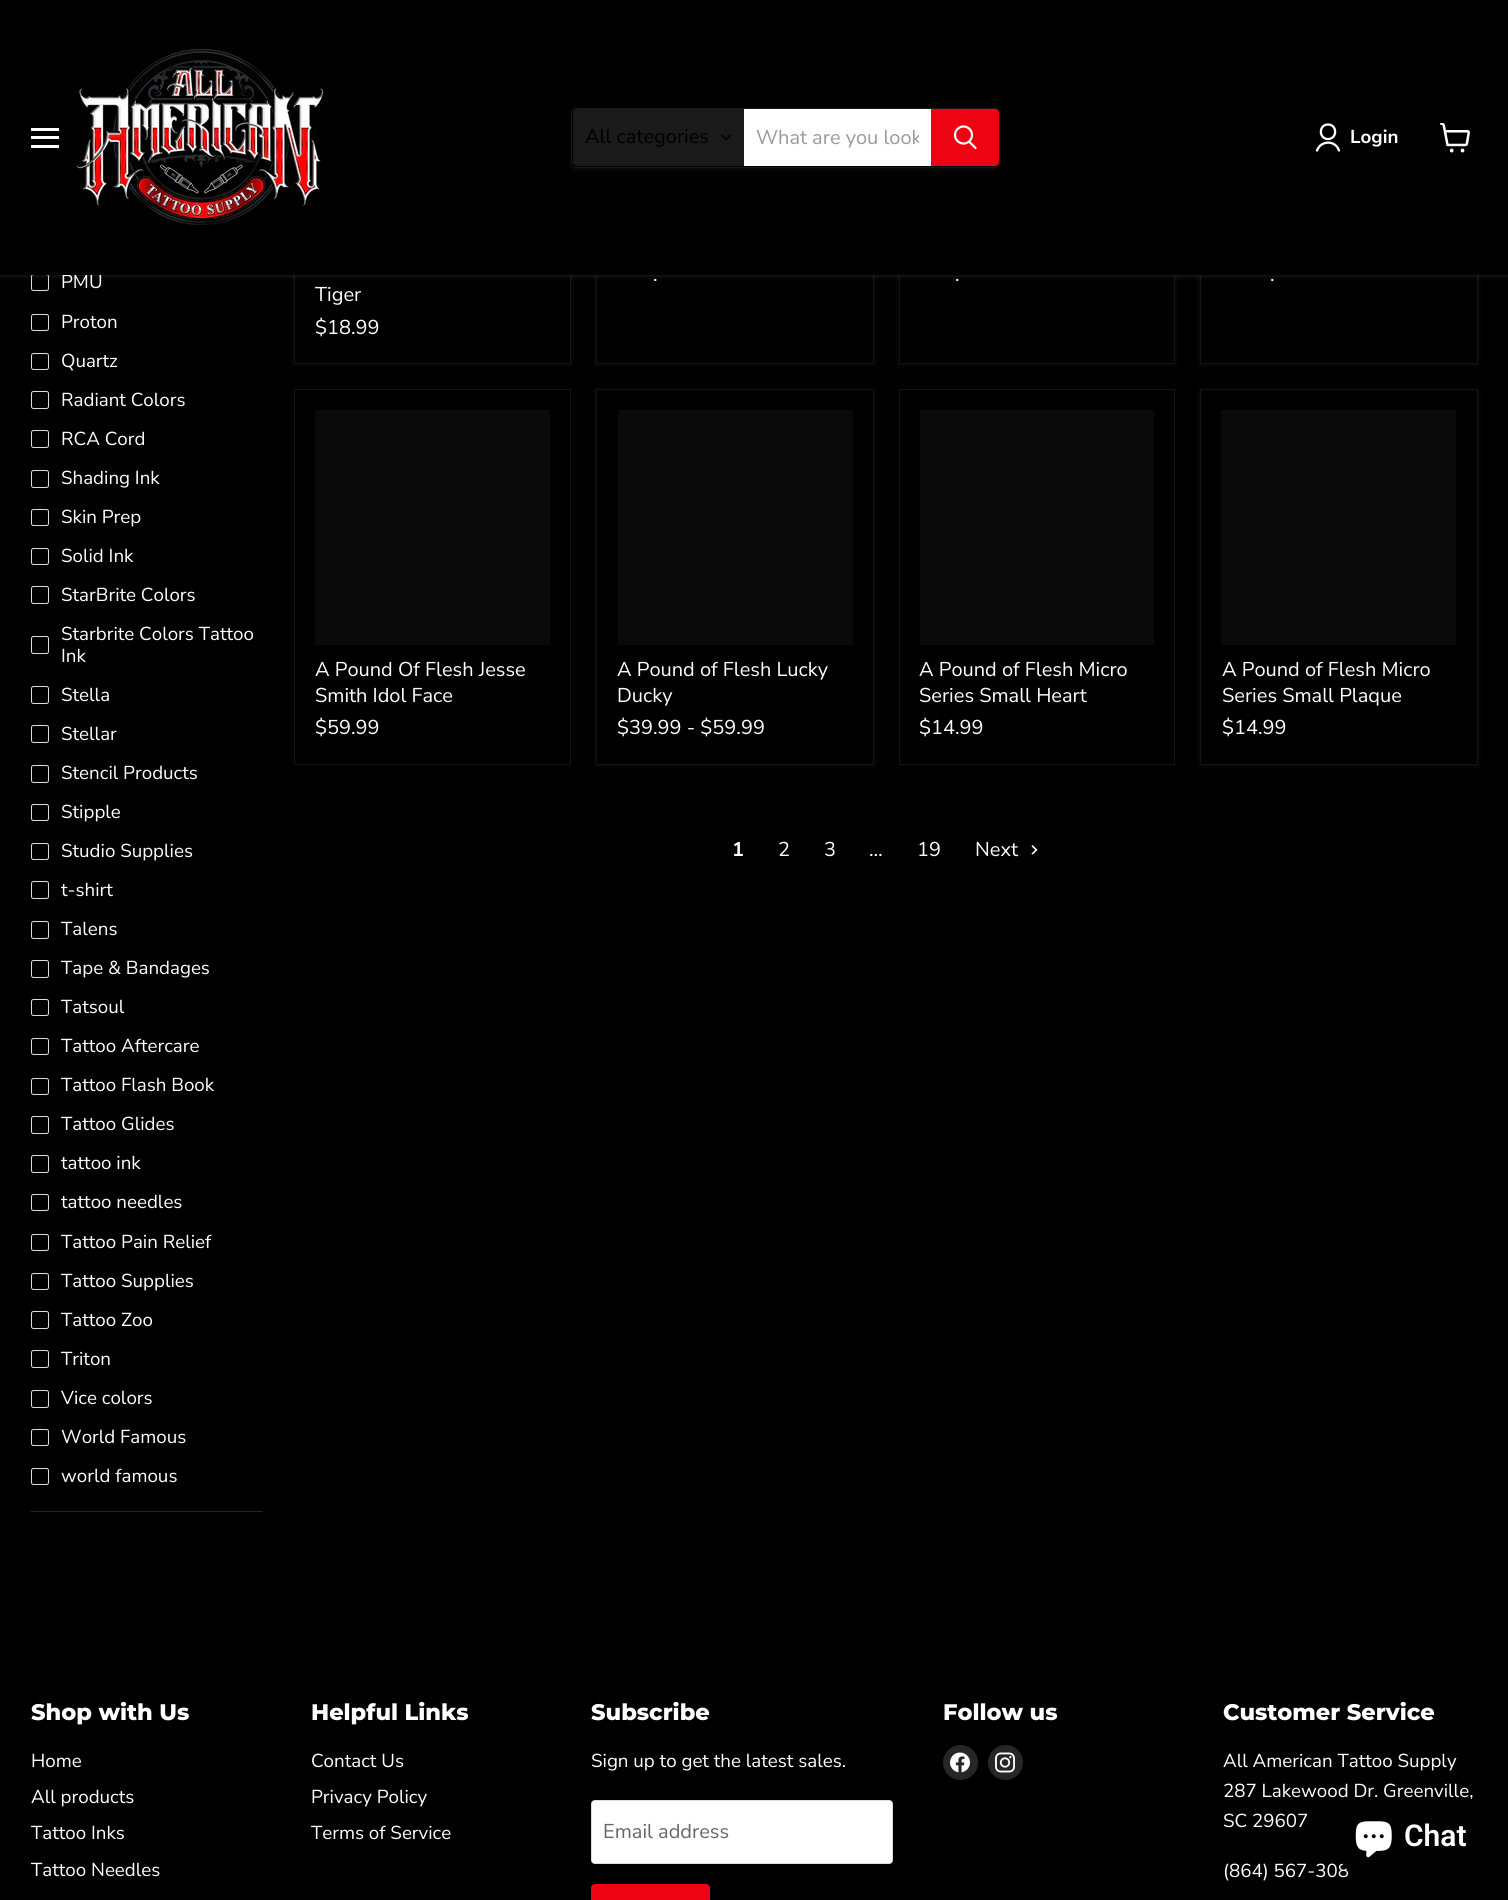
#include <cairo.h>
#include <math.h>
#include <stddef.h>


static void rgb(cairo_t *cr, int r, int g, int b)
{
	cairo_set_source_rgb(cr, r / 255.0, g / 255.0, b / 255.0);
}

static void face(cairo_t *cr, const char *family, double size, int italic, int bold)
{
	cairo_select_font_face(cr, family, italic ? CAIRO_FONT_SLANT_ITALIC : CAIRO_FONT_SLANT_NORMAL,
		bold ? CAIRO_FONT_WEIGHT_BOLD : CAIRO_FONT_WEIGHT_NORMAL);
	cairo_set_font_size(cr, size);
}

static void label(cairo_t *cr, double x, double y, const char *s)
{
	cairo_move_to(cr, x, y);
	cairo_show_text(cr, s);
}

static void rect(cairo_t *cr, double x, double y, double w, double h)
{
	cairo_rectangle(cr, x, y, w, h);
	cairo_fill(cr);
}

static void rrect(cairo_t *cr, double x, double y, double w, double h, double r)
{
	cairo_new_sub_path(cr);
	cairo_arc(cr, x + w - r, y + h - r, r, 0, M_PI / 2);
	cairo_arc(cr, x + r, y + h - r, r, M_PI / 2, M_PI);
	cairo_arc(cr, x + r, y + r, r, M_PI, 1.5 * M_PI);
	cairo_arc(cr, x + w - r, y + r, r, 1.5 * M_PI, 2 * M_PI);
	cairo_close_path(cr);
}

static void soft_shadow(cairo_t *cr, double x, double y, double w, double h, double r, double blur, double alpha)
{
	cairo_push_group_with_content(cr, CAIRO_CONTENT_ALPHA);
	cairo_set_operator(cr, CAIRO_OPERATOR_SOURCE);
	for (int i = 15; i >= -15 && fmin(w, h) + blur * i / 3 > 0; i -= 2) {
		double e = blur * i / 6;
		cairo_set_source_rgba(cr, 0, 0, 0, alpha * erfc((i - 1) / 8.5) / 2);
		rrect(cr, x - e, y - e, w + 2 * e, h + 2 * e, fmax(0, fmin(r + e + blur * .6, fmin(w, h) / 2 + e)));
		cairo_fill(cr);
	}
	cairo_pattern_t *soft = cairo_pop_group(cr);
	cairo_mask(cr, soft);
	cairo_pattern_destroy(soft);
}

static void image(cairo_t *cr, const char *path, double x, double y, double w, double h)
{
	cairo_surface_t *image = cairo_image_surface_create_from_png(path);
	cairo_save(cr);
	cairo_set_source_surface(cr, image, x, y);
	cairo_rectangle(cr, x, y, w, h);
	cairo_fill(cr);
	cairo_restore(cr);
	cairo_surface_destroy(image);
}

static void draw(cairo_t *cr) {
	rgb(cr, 0, 0, 0);
	cairo_paint(cr);
	rrect(cr, 31.5, 274.5, 17, 16, 2);
	rgb(cr, 221, 221, 221);
	cairo_set_line_width(cr, 1);
	cairo_stroke(cr);
	rgb(cr, 128, 128, 128);
	soft_shadow(cr, 596, -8, 278, 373, 0, 2.5, 0.11);
	rgb(cr, 0, 0, 0);
	rect(cr, 597, 275, 276, 88);
	cairo_rectangle(cr, 596.5, -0.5, 277, 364);
	rgb(cr, 20, 20, 20);
	cairo_stroke(cr);
	rgb(cr, 128, 128, 128);
	soft_shadow(cr, 899, -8, 276, 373, 0, 2.5, 0.11);
	rgb(cr, 0, 0, 0);
	rect(cr, 900, 275, 274, 88);
	cairo_rectangle(cr, 899.5, -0.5, 275, 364);
	rgb(cr, 20, 20, 20);
	cairo_stroke(cr);
	rgb(cr, 128, 128, 128);
	soft_shadow(cr, 1200, -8, 278, 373, 0, 2.5, 0.11);
	rgb(cr, 0, 0, 0);
	rect(cr, 1201, 275, 276, 88);
	cairo_rectangle(cr, 1200.5, -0.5, 277, 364);
	rgb(cr, 20, 20, 20);
	cairo_stroke(cr);
	rgb(cr, 128, 128, 128);
	soft_shadow(cr, 294, -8, 277, 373, 0, 2.5, 0.11);
	rgb(cr, 0, 0, 0);
	rect(cr, 295, 275, 275, 88);
	cairo_rectangle(cr, 294.5, -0.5, 276, 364);
	rgb(cr, 20, 20, 20);
	cairo_stroke(cr);
	rgb(cr, 128, 128, 128);
	soft_shadow(cr, 0, 1, 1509, 275, 0, 2.5, 0.25);
	face(cr, "Nunito Sans", 18.75, 0, 0);
	rgb(cr, 255, 255, 255);
	label(cr, 61, 288, "PMU");
	rgb(cr, 0, 0, 0);
	rect(cr, 0, 0, 1508, 275);
	rgb(cr, 255, 255, 255);
	rect(cr, 31, 128, 28, 3);
	rect(cr, 31, 136, 28, 3);
	rect(cr, 31, 145, 28, 3);
	image(cr, "image0.png", 76, 48, 248, 178);
	cairo_save(cr);
	cairo_set_fill_rule(cr, CAIRO_FILL_RULE_EVEN_ODD);
	cairo_new_path(cr);
	cairo_move_to(cr, 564, 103);
	cairo_line_to(cr, 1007, 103);
	cairo_line_to(cr, 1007, 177);
	cairo_line_to(cr, 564, 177);
	cairo_close_path(cr);
	cairo_move_to(cr, 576, 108);
	cairo_line_to(cr, 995, 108);
	cairo_curve_to(cr, 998, 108, 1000, 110, 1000, 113);
	cairo_line_to(cr, 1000, 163);
	cairo_curve_to(cr, 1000, 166, 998, 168, 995, 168);
	cairo_line_to(cr, 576, 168);
	cairo_curve_to(cr, 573, 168, 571, 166, 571, 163);
	cairo_line_to(cr, 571, 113);
	cairo_curve_to(cr, 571, 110, 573, 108, 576, 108);
	cairo_close_path(cr);
	cairo_clip(cr);
	rgb(cr, 128, 128, 128);
	soft_shadow(cr, 571, 110, 429, 60, 5, 2, 0.11);
	cairo_restore(cr);
	rrect(cr, 571.5, 108.5, 428, 59, 4.5);
	cairo_set_source_rgba(cr, 0.502, 0.502, 0.502, 0.2);
	cairo_stroke(cr);
	rgb(cr, 26, 26, 26);
	cairo_new_path(cr);
	cairo_move_to(cr, 577, 109);
	cairo_line_to(cr, 744, 109);
	cairo_line_to(cr, 744, 166);
	cairo_line_to(cr, 577, 166);
	cairo_curve_to(cr, 575, 166, 573, 164, 573, 162);
	cairo_line_to(cr, 573, 113);
	cairo_curve_to(cr, 573, 111, 575, 109, 577, 109);
	cairo_close_path(cr);
	cairo_fill(cr);
	face(cr, "Nunito Sans", 20, 0, 0);
	rgb(cr, 0, 0, 0);
	label(cr, 585, 143, "All categories");
	image(cr, "image1.png", 721, 134, 10, 7);
	rgb(cr, 255, 255, 255);
	rect(cr, 744, 109, 187, 57);
	cairo_save(cr);
	cairo_rectangle(cr, 756, 124, 163, 27);
	cairo_clip(cr);
	rgb(cr, 153, 153, 153);
	label(cr, 756, 144, "What are you look");
	cairo_restore(cr);
	rgb(cr, 238, 3, 18);
	cairo_new_path(cr);
	cairo_move_to(cr, 931.5, 109.5);
	cairo_line_to(cr, 995, 109.5);
	cairo_curve_to(cr, 997, 109.5, 998.5, 111, 998.5, 113);
	cairo_line_to(cr, 998.5, 162);
	cairo_curve_to(cr, 998.5, 164, 997, 165.5, 995, 165.5);
	cairo_line_to(cr, 931.5, 165.5);
	cairo_close_path(cr);
	cairo_fill_preserve(cr);
	cairo_stroke(cr);
	cairo_new_path(cr);
	cairo_move_to(cr, 975.5, 148);
	cairo_line_to(cr, 969.5, 142);
	rgb(cr, 255, 255, 255);
	cairo_set_line_width(cr, 2.2);
	cairo_set_line_cap(cr, CAIRO_LINE_CAP_ROUND);
	cairo_stroke(cr);
	cairo_arc(cr, 963.5, 135, 8.5, 0, 2 * M_PI);
	cairo_set_line_cap(cr, CAIRO_LINE_CAP_BUTT);
	cairo_stroke(cr);
	cairo_new_path(cr);
	cairo_move_to(cr, 1328, 139);
	cairo_curve_to(cr, 1337.5, 139, 1337.5, 124.5, 1328, 124.5);
	cairo_curve_to(cr, 1318.5, 124.5, 1318.5, 139, 1328, 139);
	cairo_close_path(cr);
	cairo_move_to(cr, 1339, 150.5);
	cairo_curve_to(cr, 1335.5, 140, 1321, 140, 1317, 150.5);
	cairo_set_line_width(cr, 2.3);
	cairo_set_line_cap(cr, CAIRO_LINE_CAP_ROUND);
	cairo_set_line_join(cr, CAIRO_LINE_JOIN_ROUND);
	cairo_stroke(cr);
	face(cr, "Nunito Sans", 18.75, 0, 1);
	label(cr, 1350, 143, "Login");
	image(cr, "image2.png", 1440, 123, 30, 30);
	rgb(cr, 38, 38, 38);
	rect(cr, 31, 1511, 232, 1);
	rrect(cr, 31.5, 314.5, 17, 16, 2);
	rgb(cr, 221, 221, 221);
	cairo_set_line_width(cr, 1);
	cairo_set_line_cap(cr, CAIRO_LINE_CAP_BUTT);
	cairo_set_line_join(cr, CAIRO_LINE_JOIN_MITER);
	cairo_stroke(cr);
	face(cr, "Nunito Sans", 18.75, 0, 0);
	rgb(cr, 255, 255, 255);
	label(cr, 61, 328, "Proton");
	rrect(cr, 31.5, 353.5, 17, 16, 2);
	rgb(cr, 221, 221, 221);
	cairo_stroke(cr);
	rgb(cr, 255, 255, 255);
	label(cr, 61, 367, "Quartz");
	rrect(cr, 31.5, 391.5, 17, 17, 2);
	rgb(cr, 221, 221, 221);
	cairo_stroke(cr);
	rgb(cr, 255, 255, 255);
	label(cr, 61, 406, "Radiant Colors");
	rrect(cr, 31.5, 430.5, 17, 17, 2);
	rgb(cr, 221, 221, 221);
	cairo_stroke(cr);
	rgb(cr, 255, 255, 255);
	label(cr, 61, 445, "RCA Cord");
	rrect(cr, 31.5, 470.5, 17, 17, 2);
	rgb(cr, 221, 221, 221);
	cairo_stroke(cr);
	rgb(cr, 255, 255, 255);
	label(cr, 61, 484, "Shading Ink");
	rrect(cr, 31.5, 509.5, 17, 16, 2);
	rgb(cr, 221, 221, 221);
	cairo_stroke(cr);
	rgb(cr, 255, 255, 255);
	label(cr, 61, 523, "Skin Prep");
	rrect(cr, 31.5, 548.5, 17, 16, 2);
	rgb(cr, 221, 221, 221);
	cairo_stroke(cr);
	rgb(cr, 255, 255, 255);
	label(cr, 61, 562, "Solid Ink");
	rrect(cr, 31.5, 586.5, 17, 17, 2);
	rgb(cr, 221, 221, 221);
	cairo_stroke(cr);
	rgb(cr, 255, 255, 255);
	label(cr, 61, 601, "StarBrite Colors");
	rrect(cr, 31.5, 636.5, 17, 17, 2);
	rgb(cr, 221, 221, 221);
	cairo_stroke(cr);
	rgb(cr, 255, 255, 255);
	label(cr, 61, 640, "Starbrite Colors Tattoo");
	label(cr, 61, 662, "Ink");
	rrect(cr, 31.5, 686.5, 17, 17, 2);
	rgb(cr, 221, 221, 221);
	cairo_stroke(cr);
	rgb(cr, 255, 255, 255);
	label(cr, 61, 701, "Stella");
	rrect(cr, 31.5, 725.5, 17, 17, 2);
	rgb(cr, 221, 221, 221);
	cairo_stroke(cr);
	rgb(cr, 255, 255, 255);
	label(cr, 61, 740, "Stellar");
	rrect(cr, 31.5, 765.5, 17, 17, 2);
	rgb(cr, 221, 221, 221);
	cairo_stroke(cr);
	rgb(cr, 255, 255, 255);
	label(cr, 61, 779, "Stencil Products");
	rrect(cr, 31.5, 804.5, 17, 16, 2);
	rgb(cr, 221, 221, 221);
	cairo_stroke(cr);
	rgb(cr, 255, 255, 255);
	label(cr, 61, 818, "Stipple");
	rrect(cr, 31.5, 843.5, 17, 16, 2);
	rgb(cr, 221, 221, 221);
	cairo_stroke(cr);
	rgb(cr, 255, 255, 255);
	label(cr, 61, 857, "Studio Supplies");
	rrect(cr, 31.5, 881.5, 17, 17, 2);
	rgb(cr, 221, 221, 221);
	cairo_stroke(cr);
	rgb(cr, 255, 255, 255);
	label(cr, 61, 896, "t-shirt");
	rrect(cr, 31.5, 921.5, 17, 17, 2);
	rgb(cr, 221, 221, 221);
	cairo_stroke(cr);
	rgb(cr, 255, 255, 255);
	label(cr, 61, 935, "Talens");
	rrect(cr, 31.5, 960.5, 17, 17, 2);
	rgb(cr, 221, 221, 221);
	cairo_stroke(cr);
	rgb(cr, 255, 255, 255);
	label(cr, 61, 974, "Tape & Bandages");
	rrect(cr, 31.5, 999.5, 17, 16, 2);
	rgb(cr, 221, 221, 221);
	cairo_stroke(cr);
	rgb(cr, 255, 255, 255);
	label(cr, 61, 1013, "Tatsoul");
	rrect(cr, 31.5, 1038.5, 17, 16, 2);
	rgb(cr, 221, 221, 221);
	cairo_stroke(cr);
	rgb(cr, 255, 255, 255);
	label(cr, 61, 1052, "Tattoo Aftercare");
	rrect(cr, 31.5, 1078.5, 17, 16, 2);
	rgb(cr, 221, 221, 221);
	cairo_stroke(cr);
	rgb(cr, 255, 255, 255);
	label(cr, 61, 1091, "Tattoo Flash Book");
	rrect(cr, 31.5, 1116.5, 17, 17, 2);
	rgb(cr, 221, 221, 221);
	cairo_stroke(cr);
	rgb(cr, 255, 255, 255);
	label(cr, 61, 1130, "Tattoo Glides");
	rrect(cr, 31.5, 1155.5, 17, 17, 2);
	rgb(cr, 221, 221, 221);
	cairo_stroke(cr);
	rgb(cr, 255, 255, 255);
	label(cr, 61, 1169, "tattoo ink");
	rrect(cr, 31.5, 1194.5, 17, 16, 2);
	rgb(cr, 221, 221, 221);
	cairo_stroke(cr);
	rgb(cr, 255, 255, 255);
	label(cr, 61, 1208, "tattoo needles");
	rrect(cr, 31.5, 1234.5, 17, 16, 2);
	rgb(cr, 221, 221, 221);
	cairo_stroke(cr);
	rgb(cr, 255, 255, 255);
	label(cr, 61, 1248, "Tattoo Pain Relief");
	rrect(cr, 31.5, 1273.5, 17, 16, 2);
	rgb(cr, 221, 221, 221);
	cairo_stroke(cr);
	rgb(cr, 255, 255, 255);
	label(cr, 61, 1287, "Tattoo Supplies");
	rrect(cr, 31.5, 1311.5, 17, 17, 2);
	rgb(cr, 221, 221, 221);
	cairo_stroke(cr);
	rgb(cr, 255, 255, 255);
	label(cr, 61, 1326, "Tattoo Zoo");
	rrect(cr, 31.5, 1350.5, 17, 17, 2);
	rgb(cr, 221, 221, 221);
	cairo_stroke(cr);
	rgb(cr, 255, 255, 255);
	label(cr, 61, 1365, "Triton");
	rrect(cr, 31.5, 1390.5, 17, 17, 2);
	rgb(cr, 221, 221, 221);
	cairo_stroke(cr);
	rgb(cr, 255, 255, 255);
	label(cr, 61, 1404, "Vice colors");
	rrect(cr, 31.5, 1429.5, 17, 16, 2);
	rgb(cr, 221, 221, 221);
	cairo_stroke(cr);
	rgb(cr, 255, 255, 255);
	label(cr, 61, 1443, "World Famous");
	rrect(cr, 31.5, 1468.5, 17, 16, 2);
	rgb(cr, 221, 221, 221);
	cairo_stroke(cr);
	rgb(cr, 255, 255, 255);
	label(cr, 61, 1482, "world famous");
	face(cr, "Nunito Sans", 20, 0, 0);
	label(cr, 653, 281, ".");
	label(cr, 955, 281, ".");
	label(cr, 1270, 281, ".");
	label(cr, 315, 301, "Tiger");
	label(cr, 315, 334, "$18.99");
	cairo_rectangle(cr, 294.5, 389.5, 276, 375);
	rgb(cr, 20, 20, 20);
	cairo_stroke(cr);
	rgb(cr, 10, 10, 10);
	rect(cr, 315, 410, 235, 235);
	rgb(cr, 255, 255, 255);
	label(cr, 315, 676, "A Pound Of Flesh Jesse");
	label(cr, 315, 702, "Smith Idol Face");
	label(cr, 315, 734, "$59.99");
	rgb(cr, 128, 128, 128);
	soft_shadow(cr, 596, 390, 278, 376, 0, 2.5, 0.11);
	rgb(cr, 0, 0, 0);
	cairo_rectangle(cr, 596.5, 389.5, 277, 375);
	cairo_fill_preserve(cr);
	rgb(cr, 20, 20, 20);
	cairo_stroke(cr);
	rgb(cr, 10, 10, 10);
	rect(cr, 618, 410, 235, 235);
	rgb(cr, 255, 255, 255);
	label(cr, 617, 676, "A Pound of Flesh Lucky");
	label(cr, 617, 702, "Ducky");
	label(cr, 617, 734, "$39.99 - $59.99");
	cairo_rectangle(cr, 899.5, 389.5, 275, 375);
	rgb(cr, 20, 20, 20);
	cairo_stroke(cr);
	rgb(cr, 10, 10, 10);
	rect(cr, 920, 410, 234, 235);
	rgb(cr, 255, 255, 255);
	label(cr, 919, 676, "A Pound of Flesh Micro");
	label(cr, 919, 702, "Series Small Heart");
	label(cr, 919, 734, "$14.99");
	rgb(cr, 128, 128, 128);
	soft_shadow(cr, 1200, 390, 278, 376, 0, 2.5, 0.11);
	rgb(cr, 0, 0, 0);
	cairo_rectangle(cr, 1200.5, 389.5, 277, 375);
	cairo_fill_preserve(cr);
	rgb(cr, 20, 20, 20);
	cairo_stroke(cr);
	rgb(cr, 10, 10, 10);
	rect(cr, 1221, 410, 235, 235);
	rgb(cr, 255, 255, 255);
	label(cr, 1222, 676, "A Pound of Flesh Micro");
	label(cr, 1222, 702, "Series Small Plaque");
	label(cr, 1222, 734, "$14.99");
	face(cr, "Nunito Sans", 20, 0, 1);
	label(cr, 732, 856, "1");
	face(cr, "Nunito Sans", 20, 0, 0);
	label(cr, 778, 856, "2");
	label(cr, 824, 856, "3");
	label(cr, 869, 856, "…");
	label(cr, 917, 856, "19");
	label(cr, 975, 856, "Next");
	image(cr, "image3.png", 1031, 845, 7, 10);
	face(cr, "Montserrat ExtraBold", 22.5, 0, 0);
	label(cr, 31, 1720, "Shop with Us");
	face(cr, "Nunito Sans", 18.75, 0, 0);
	label(cr, 31, 1767, "Home");
	label(cr, 31, 1803, "All products");
	label(cr, 31, 1839, "Tattoo Inks");
	label(cr, 31, 1876, "Tattoo Needles");
	face(cr, "Montserrat ExtraBold", 22.5, 0, 0);
	label(cr, 311, 1720, "Helpful Links");
	face(cr, "Nunito Sans", 18.75, 0, 0);
	label(cr, 311, 1767, "Contact Us");
	label(cr, 311, 1803, "Privacy Policy");
	label(cr, 311, 1839, "Terms of Service");
	face(cr, "Montserrat ExtraBold", 22.5, 0, 0);
	label(cr, 591, 1720, "Subscribe");
	face(cr, "Nunito Sans", 18.75, 0, 0);
	label(cr, 591, 1767, "Sign up to get the latest sales.");
	rrect(cr, 591.5, 1800.5, 301, 63, 3.5);
	cairo_fill_preserve(cr);
	rgb(cr, 221, 221, 221);
	cairo_stroke(cr);
	face(cr, "Nunito Sans", 20, 0, 0);
	rgb(cr, 102, 102, 102);
	label(cr, 603, 1838, "Email address");
	rgb(cr, 238, 3, 18);
	rrect(cr, 591.5, 1884.5, 118, 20, 3.5);
	cairo_fill_preserve(cr);
	cairo_stroke(cr);
	face(cr, "Montserrat ExtraBold", 22.5, 0, 0);
	rgb(cr, 255, 255, 255);
	label(cr, 943, 1720, "Follow us");
	rgb(cr, 38, 38, 38);
	cairo_new_path(cr);
	cairo_arc(cr, 960.5, 1762.5, 17.5, 0, 2 * M_PI);
	cairo_fill(cr);
	image(cr, "image4.png", 950, 1752, 20, 21);
	cairo_arc(cr, 1005.5, 1762.5, 17.5, 0, 2 * M_PI);
	cairo_fill(cr);
	image(cr, "image5.png", 995, 1752, 20, 21);
	rgb(cr, 255, 255, 255);
	label(cr, 1223, 1720, "Customer Service");
	face(cr, "Nunito Sans", 18.75, 0, 0);
	label(cr, 1223, 1767, "All American Tattoo Supply");
	label(cr, 1223, 1797, "287 Lakewood Dr. Greenville,");
	label(cr, 1223, 1827, "SC 29607");
	label(cr, 1223, 1877, "(864) 567-308");
	rgb(cr, 0, 0, 0);
	soft_shadow(cr, 1340, 1799, 141, 75, 20, 3, 0.15);
	rgb(cr, 0, 0, 0);
	rrect(cr, 1340, 1799, 141, 75, 20);
	cairo_fill(cr);
	image(cr, "image6.png", 1355, 1821, 37, 37);
	face(cr, "Roboto SemiBold", 30, 0, 0);
	rgb(cr, 255, 255, 255);
	label(cr, 1404, 1846, "Chat");
}

int main(void) {
	cairo_surface_t *surface = cairo_image_surface_create(CAIRO_FORMAT_RGB24, 1508, 1900);
	cairo_t *cr = cairo_create(surface);
	cairo_font_options_t *options = cairo_font_options_create();
	cairo_font_options_set_hint_metrics(options, CAIRO_HINT_METRICS_OFF);
	cairo_font_options_set_hint_style(options, CAIRO_HINT_STYLE_NONE);
	cairo_set_font_options(cr, options);
	cairo_set_miter_limit(cr, 4);
	draw(cr);
	cairo_surface_write_to_png(surface, "render.png");
	cairo_font_options_destroy(options);
	cairo_destroy(cr);
	cairo_surface_destroy(surface);
	return 0;
}
